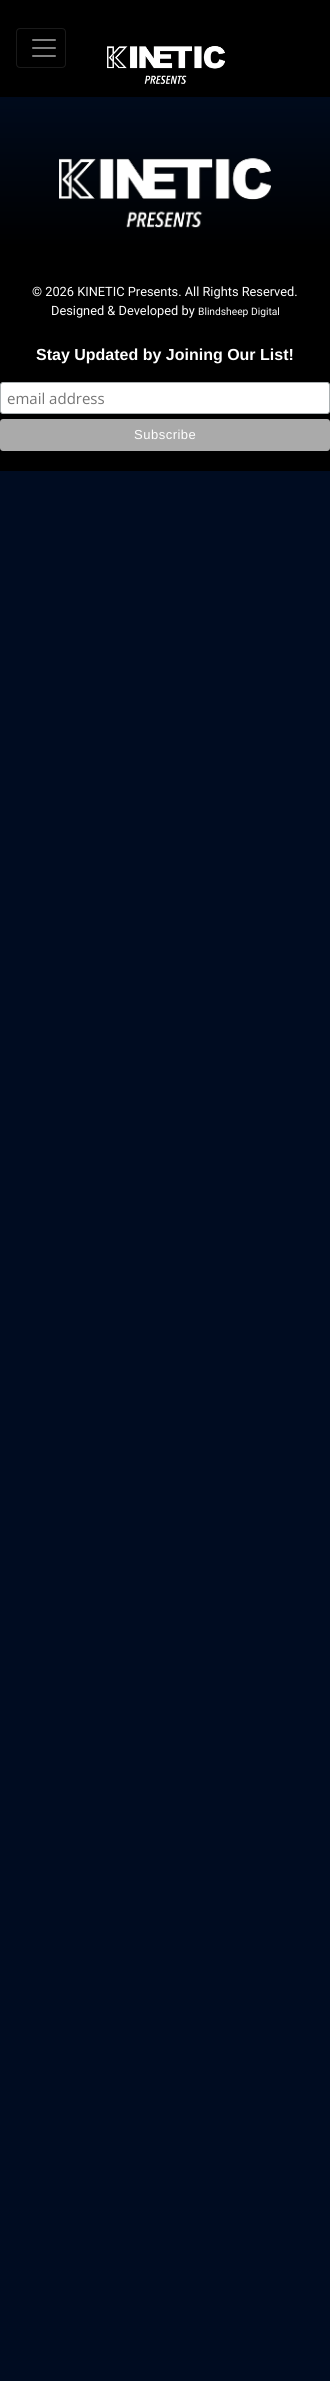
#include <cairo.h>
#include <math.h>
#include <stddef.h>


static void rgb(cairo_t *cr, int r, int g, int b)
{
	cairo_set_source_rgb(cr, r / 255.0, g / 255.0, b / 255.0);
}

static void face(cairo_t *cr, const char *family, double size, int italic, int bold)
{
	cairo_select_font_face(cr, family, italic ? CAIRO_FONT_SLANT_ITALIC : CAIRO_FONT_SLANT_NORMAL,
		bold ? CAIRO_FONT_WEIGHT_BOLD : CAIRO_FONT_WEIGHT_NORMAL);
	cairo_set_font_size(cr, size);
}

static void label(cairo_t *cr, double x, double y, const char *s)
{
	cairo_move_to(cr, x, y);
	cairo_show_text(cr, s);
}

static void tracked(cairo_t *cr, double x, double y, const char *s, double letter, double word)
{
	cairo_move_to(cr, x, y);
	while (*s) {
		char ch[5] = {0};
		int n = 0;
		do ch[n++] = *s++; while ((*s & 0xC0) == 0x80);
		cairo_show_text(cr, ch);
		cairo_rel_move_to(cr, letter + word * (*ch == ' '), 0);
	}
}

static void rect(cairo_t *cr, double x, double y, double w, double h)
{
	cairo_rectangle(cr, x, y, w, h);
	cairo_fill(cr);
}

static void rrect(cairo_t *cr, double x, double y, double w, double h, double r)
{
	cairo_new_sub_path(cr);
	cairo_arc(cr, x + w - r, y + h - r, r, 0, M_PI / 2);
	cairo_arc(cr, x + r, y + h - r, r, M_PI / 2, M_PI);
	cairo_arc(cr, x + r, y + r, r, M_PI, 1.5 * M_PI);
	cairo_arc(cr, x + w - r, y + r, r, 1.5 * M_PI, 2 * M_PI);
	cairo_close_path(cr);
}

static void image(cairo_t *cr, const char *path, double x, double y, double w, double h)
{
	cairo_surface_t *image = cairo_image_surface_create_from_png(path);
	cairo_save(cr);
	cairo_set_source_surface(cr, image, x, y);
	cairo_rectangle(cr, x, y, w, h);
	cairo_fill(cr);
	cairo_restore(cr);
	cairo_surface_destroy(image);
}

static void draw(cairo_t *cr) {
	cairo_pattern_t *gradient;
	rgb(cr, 0, 12, 33);
	cairo_paint(cr);
	rgb(cr, 0, 0, 0);
	rect(cr, 0, 0, 330, 97);
	rrect(cr, 16.5, 28.5, 49, 39, 3.5);
	rgb(cr, 26, 26, 26);
	cairo_set_line_width(cr, 1);
	cairo_stroke(cr);
	image(cr, "image0.png", 32, 39, 24, 18);
	image(cr, "image1.png", 107, 46, 118, 38);
	gradient = cairo_pattern_create_linear(165, 23, 165, 471);
	cairo_pattern_add_color_stop_rgba(gradient, 0.11, 0, 0.047, 0.129, 1);
	cairo_pattern_add_color_stop_rgba(gradient, 0.5, 0, 0, 0, 1);
	cairo_set_source(cr, gradient);
	cairo_pattern_destroy(gradient);
	rect(cr, 0, 97, 330, 374);
	image(cr, "image2.png", 59, 158, 212, 70);
	face(cr, "Roboto", 12.8, 0, 0);
	rgb(cr, 255, 255, 255);
	label(cr, 32, 296, "© 2026 KINETIC Presents. All Rights Reserved.");
	label(cr, 51, 315, "Designed & Developed by");
	face(cr, "Roboto", 10.25, 0, 0);
	label(cr, 198, 315, "Blindsheep Digital");
	face(cr, "Liberation Sans", 16, 0, 1);
	label(cr, 36, 360, "Stay Updated by Joining Our List!");
	rrect(cr, 0.5, 382.5, 329, 31, 2.5);
	cairo_fill_preserve(cr);
	rgb(cr, 171, 176, 178);
	cairo_stroke(cr);
	face(cr, "Open Sans", 15, 0, 0);
	rgb(cr, 117, 117, 117);
	label(cr, 7, 404, "email address");
	rgb(cr, 170, 170, 170);
	rrect(cr, 0, 419, 330, 32, 3);
	cairo_fill(cr);
	face(cr, "Liberation Sans", 13, 0, 0);
	rgb(cr, 255, 255, 255);
	tracked(cr, 134, 439, "Subscribe", 0.5, 0);
}

int main(void) {
	cairo_surface_t *surface = cairo_image_surface_create(CAIRO_FORMAT_RGB24, 330, 2381);
	cairo_t *cr = cairo_create(surface);
	cairo_font_options_t *options = cairo_font_options_create();
	cairo_font_options_set_hint_metrics(options, CAIRO_HINT_METRICS_OFF);
	cairo_font_options_set_hint_style(options, CAIRO_HINT_STYLE_NONE);
	cairo_set_font_options(cr, options);
	cairo_set_miter_limit(cr, 4);
	draw(cr);
	cairo_surface_write_to_png(surface, "render.png");
	cairo_font_options_destroy(options);
	cairo_destroy(cr);
	cairo_surface_destroy(surface);
	return 0;
}
